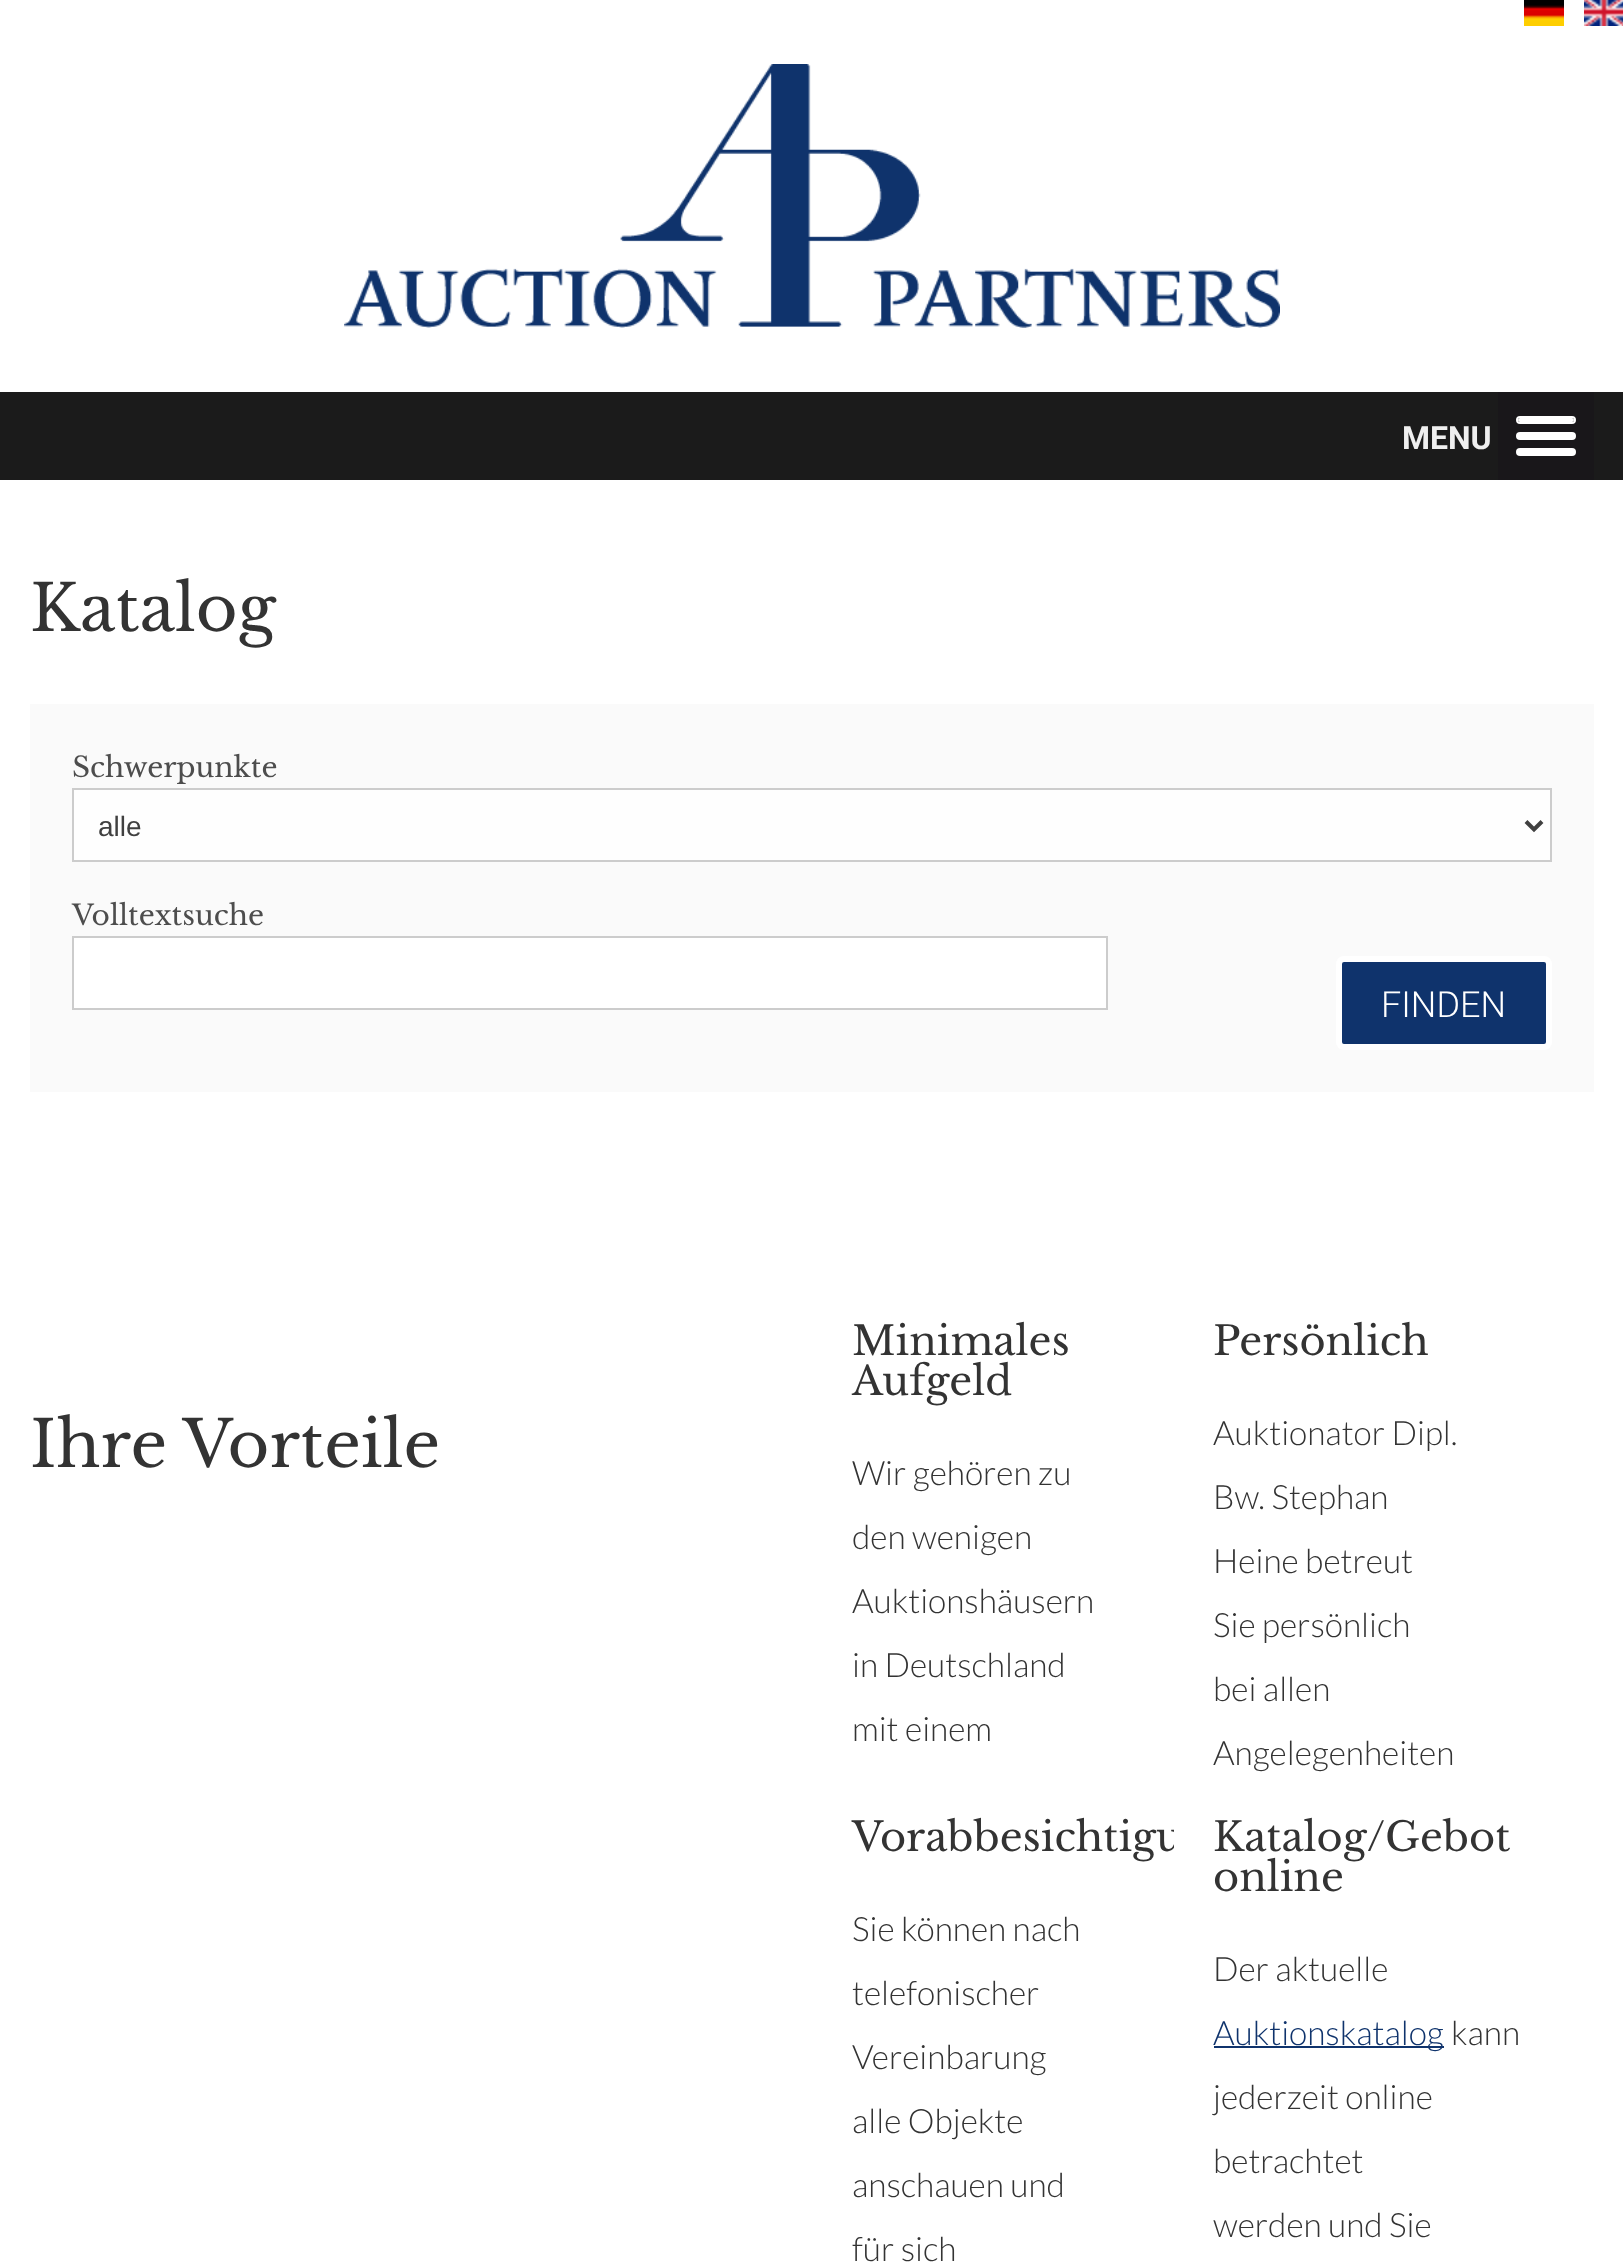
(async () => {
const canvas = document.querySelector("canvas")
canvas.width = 1623
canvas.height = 2268
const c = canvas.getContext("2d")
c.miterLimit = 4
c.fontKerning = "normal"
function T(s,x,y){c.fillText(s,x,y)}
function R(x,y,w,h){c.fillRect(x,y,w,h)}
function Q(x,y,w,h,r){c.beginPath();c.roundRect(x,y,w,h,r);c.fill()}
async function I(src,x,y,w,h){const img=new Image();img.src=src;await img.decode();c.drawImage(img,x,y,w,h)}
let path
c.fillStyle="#fff"
R(0,0,1623,2268)
await I("1.png",1524,0,40,26)
await I("2.png",1584,0,39,26)
await I("3.png",344,64,936,264)
c.fillStyle="#1b1b1b"
R(0,392,1623,88)
c.fillStyle="#19171a"
R(1498,392,96,88)
c.font="bold 32px Roboto"
c.fillStyle="#efefef"
T("MENU",1402,449)
c.fillStyle="#fff"
Q(1516,448,60,8,4)
Q(1516,432,60,8,4)
c.beginPath()
c.roundRect(1517,417,58,6,3)
c.strokeStyle="#fff"
c.lineWidth=2
c.stroke()
Q(1518,418,56,4,2)
c.font="64px Libre Baskerville"
c.fillStyle="#333"
T("Katalog",30,631)
c.fillStyle="#fafafa"
R(30,704,1564,388)
c.font="28px Libre Baskerville"
c.fillStyle="#4d4d4d"
T("Schwerpunkte",72,777)
c.fillStyle="#fefefe"
c.beginPath()
c.rect(73,789,1478,72)
c.fill()
c.strokeStyle="#ccc"
c.stroke()
path = new Path2D("M1526 821.5l8 8l8-8")
c.strokeStyle="#404040"
c.lineWidth=4
c.stroke(path)
c.font="28px Liberation Sans"
c.fillStyle="#404040"
T("alle",98,836)
c.font="28px Libre Baskerville"
c.fillStyle="#4d4d4d"
T("Volltextsuche",72,925)
c.fillStyle="#fff"
c.beginPath()
c.rect(73,937,1034,72)
c.fill()
c.strokeStyle="#ccc"
c.lineWidth=2
c.stroke()
c.fillStyle="#0f336c"
c.beginPath()
c.roundRect(1339,959,210,88,5)
c.fill()
c.strokeStyle="#fff"
c.lineWidth=6
c.stroke()
c.font="300 36px Roboto"
c.fillStyle="#fff"
T("FINDEN",1381,1017)
c.font="64px Libre Baskerville"
c.fillStyle="#333"
T("Ihre Vorteile",30,1467)
c.font="40px Libre Baskerville"
T("Minimales",852,1355)
T("Aufgeld",852,1395)
c.font="300 33.5px Lato"
T("Wir gehören zu",852,1485)
T("den wenigen",852,1549)
T("Auktionshäusern",852,1613)
T("in Deutschland",852,1677)
T("mit einem",852,1741)
c.font="40px Libre Baskerville"
T("Persönlich",1213,1355)
c.font="300 33.5px Lato"
T("Auktionator Dipl.",1213,1445)
T("Bw. Stephan",1213,1509)
T("Heine betreut",1213,1573)
T("Sie persönlich",1213,1637)
T("bei allen",1213,1701)
T("Angelegenheiten",1213,1765)
c.font="40px Libre Baskerville"
T("Vorabbesichtigu",852,1851)
c.font="300 33.5px Lato"
T("Sie können nach",852,1941)
T("telefonischer",852,2005)
T("Vereinbarung",852,2069)
T("alle Objekte",852,2133)
T("anschauen und",852,2197)
T("für sich",852,2261)
c.fillStyle="#fff"
R(1174,1829,8,23)
c.font="40px Libre Baskerville"
c.fillStyle="#333"
T("Katalog/Gebot",1213,1851)
T("online",1213,1891)
c.font="300 33.5px Lato"
T("Der aktuelle",1213,1981)
c.fillStyle="#0f336c"
R(1214,2046,230,2)
T("Auktionskatalog",1213,2045)
c.fillStyle="#333"
T("kann",1451,2045)
T("jederzeit online",1213,2109)
T("betrachtet",1213,2173)
T("werden und Sie",1213,2237)
})()
